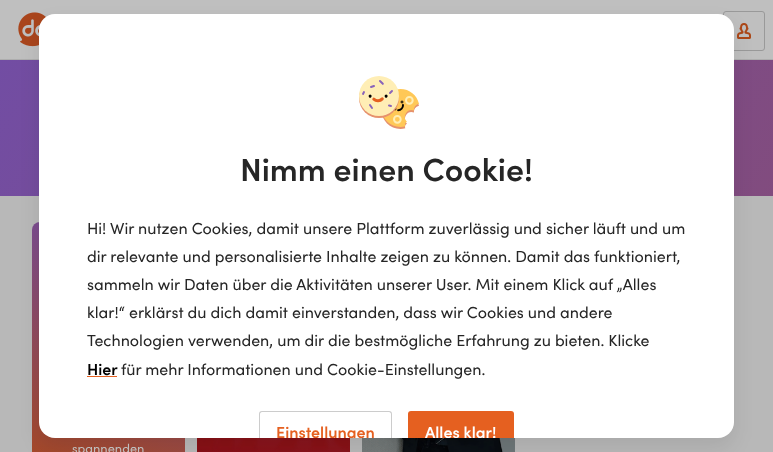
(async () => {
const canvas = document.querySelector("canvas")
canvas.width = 773
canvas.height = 452
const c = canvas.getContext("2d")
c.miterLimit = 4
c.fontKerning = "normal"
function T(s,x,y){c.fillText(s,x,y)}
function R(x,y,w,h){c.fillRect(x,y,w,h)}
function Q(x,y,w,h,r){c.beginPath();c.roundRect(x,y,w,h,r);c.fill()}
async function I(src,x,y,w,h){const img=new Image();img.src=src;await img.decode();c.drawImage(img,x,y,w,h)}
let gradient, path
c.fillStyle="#b8b8b8"
R(0,0,773,452)
c.fillStyle="#bfbfbf"
R(0,0,773,59)
c.fillStyle="#adadad"
R(0,59,773,1)
await I("2.png",18,12,28,35)
c.beginPath()
c.roundRect(723.5,11.5,41,39,2.5)
c.strokeStyle="#999"
c.stroke()
await I("3.png",737,23,14,16)
gradient = c.createLinearGradient(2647,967,445,-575)
gradient.addColorStop(0,"#ac4818")
gradient.addColorStop(1,"#724da3")
c.fillStyle = gradient
R(0,60,773,136)
gradient = c.createLinearGradient(61,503,156,213)
gradient.addColorStop(0,"#ac4818")
gradient.addColorStop(1,"#724da3")
c.fillStyle = gradient
c.beginPath()
c.roundRect(32,222,153,230,[8,8,0,0])
c.fill()
gradient = c.createLinearGradient(261,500,286,216)
gradient.addColorStop(0,"#a8000b")
gradient.addColorStop(1,"#b38184")
c.fillStyle = gradient
R(197,438,153,14)
await I("4.png",197,438,153,13)
c.fillStyle="#00000033"
R(197,438,153,14)
await I("5.png",362,438,153,14)
R(362,438,153,14)
c.fillStyle="#00000014"
c.filter="blur(10px)"
c.beginPath()
c.roundRect(39,24,695,424,16)
c.fill()
c.filter="none"
c.fillStyle="#fff"
Q(39,14,695,424,16)
await I("1.png",359,76,60,53)
c.font="600 32px Sofia"
c.fillStyle="#262626"
T("Nimm einen Cookie!",240,181)
c.font="16px Sofia"
T("Hi! Wir nutzen Cookies, damit unsere Plattform zuverlässig und sicher läuft und um",87,234)
T("dir relevante und personalisierte Inhalte zeigen zu können. Damit das funktioniert,",87,262)
T("sammeln wir Daten über die Aktivitäten unserer User. Mit einem Klick auf „Alles",87,290)
T("klar!“ erklärst du dich damit einverstanden, dass wir Cookies und andere",87,318)
T("Technologien verwenden, um dir die bestmögliche Erfahrung zu bieten. Klicke",87,346)
c.font="600 16px Sofia"
c.fillStyle="#000"
T("Hier",87,375)
c.fillStyle="#e56020"
R(87,376,30,1)
c.font="16px Sofia"
c.fillStyle="#262626"
T("für mehr Informationen und Cookie-Einstellungen.",121,375)
c.fillStyle="#ccc"
path = new Path2D("M262 411c-2 0-3 1-3 3v24h1v-24c0-1 1-2 2-2h127c1 0 2 1 2 2v24h1v-24c0-2-1-3-3-3z")
c.fill(path)
c.save()
c.beginPath()
c.roundRect(39,14,695,424,16)
c.clip()
c.font="600 16px Sofia"
c.fillStyle="#e56020"
T("Einstellungen",276,438)
c.restore()
c.fillStyle="#e56020"
c.beginPath()
c.roundRect(408,411,106,27,[3,3,0,0])
c.fill()
c.save()
c.beginPath()
c.roundRect(39,14,695,424,16)
c.clip()
c.font="600 16px Sofia"
c.fillStyle="#fff"
T("Alles klar!",425,438)
c.restore()
c.font="12.75px Sofia"
c.fillStyle="#bfbfbf"
T("spannenden",72,453)
})()
